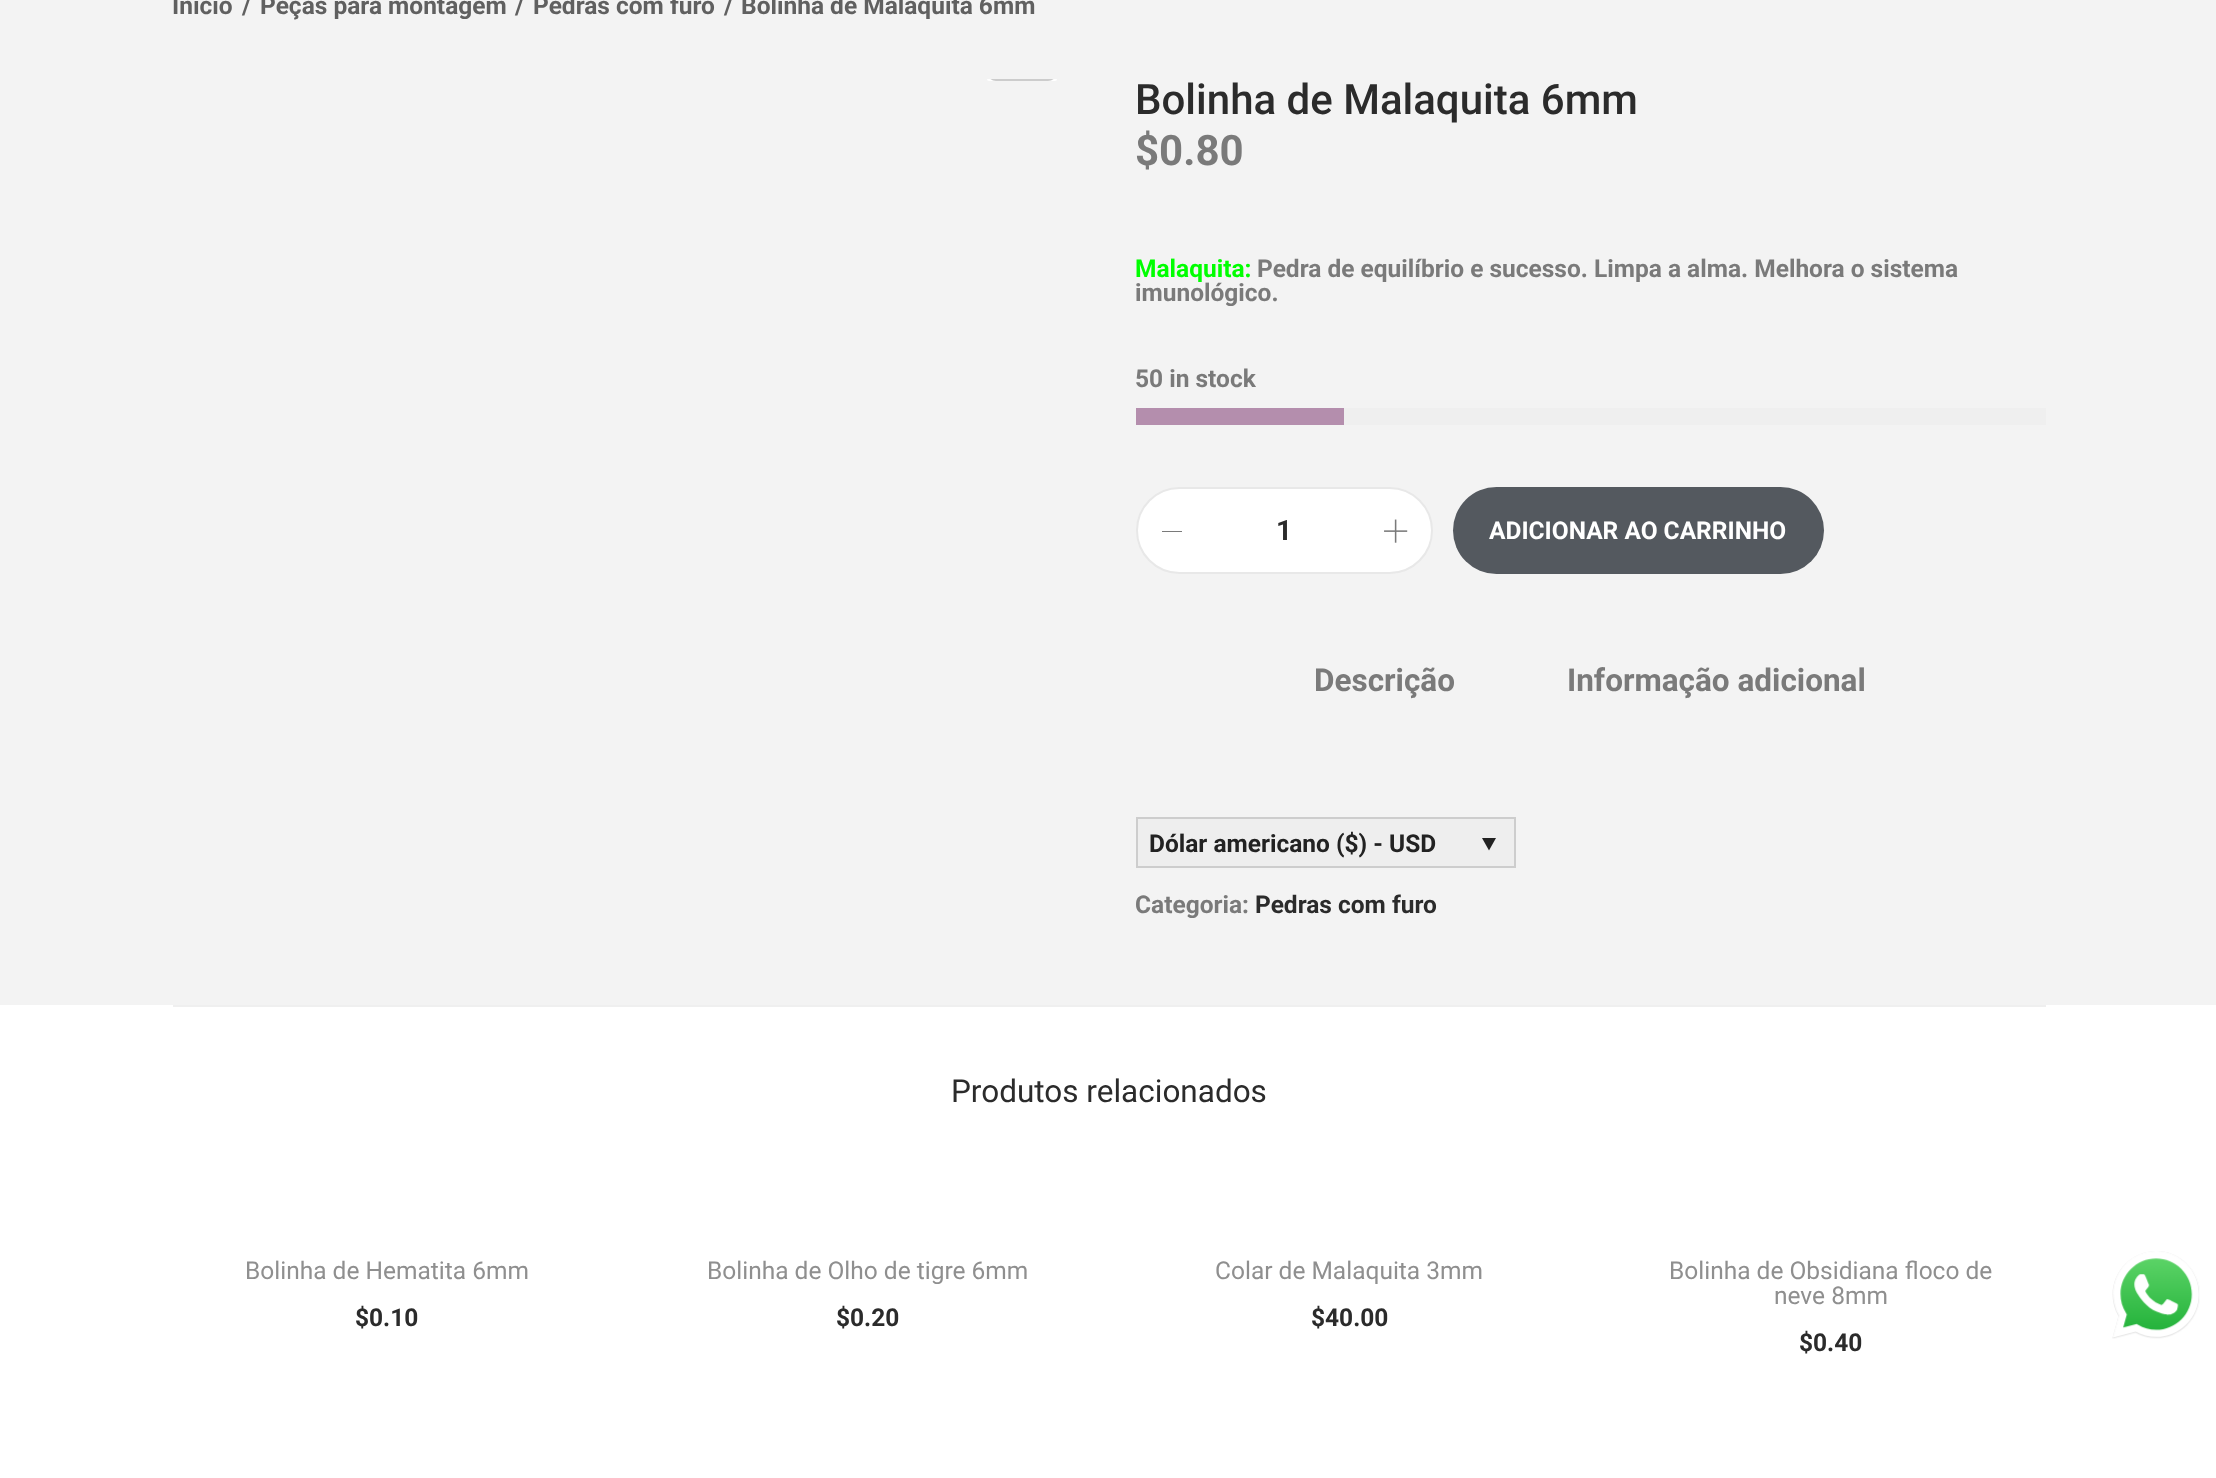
(async () => {
const canvas = document.querySelector("canvas")
canvas.width = 2216
canvas.height = 1478
const c = canvas.getContext("2d")
c.miterLimit = 4
c.fontKerning = "normal"
function T(s,x,y){c.fillText(s,x,y)}
function R(x,y,w,h){c.fillRect(x,y,w,h)}
function Q(x,y,w,h,r){c.beginPath();c.roundRect(x,y,w,h,r);c.fill()}
async function I(src,x,y,w,h){const img=new Image();img.src=src;await img.decode();c.drawImage(img,x,y,w,h)}
let path
c.fillStyle="#fff"
R(0,0,2216,1478)
c.fillStyle="#f3f3f3"
R(0,0,2216,1005)
c.font="bold 24.5px Roboto"
c.fillStyle="#606060"
T("Início",172,14)
T("/",242,14)
T("Peças para montagem",260,14)
T("/",515,14)
T("Pedras com furo",533,14)
T("/",724,14)
T("Bolinha de Malaquita 6mm",741,14)
c.fillStyle="#fff"
c.beginPath()
c.roundRect(987,79,70,2,[0,0,9,9])
c.fill()
c.save()
c.beginPath()
c.rect(173,79,910,28)
c.clip()
c.beginPath()
c.roundRect(988,12,68,68,8)
c.strokeStyle="#ccc"
c.lineWidth=2
c.stroke()
c.restore()
c.font="500 42px Roboto"
c.fillStyle="#2b2b2b"
T("Bolinha de Malaquita 6mm",1135,114)
c.font="bold 42px Roboto"
c.fillStyle="#7a7a7a"
T("$0.80",1135,165)
c.font="bold 24.5px Roboto"
c.fillStyle="#0f0"
T("Malaquita:",1135,277)
c.fillStyle="#7a7a7a"
T("Pedra de equilíbrio e sucesso. Limpa a alma. Melhora o sistema",1257,277)
T("imunológico.",1135,301)
T("50 in stock",1135,387)
c.fillStyle="#efefef"
R(1344,408,702,17)
c.fillStyle="#b48ead"
R(1136,408,208,17)
c.fillStyle="#fff"
c.beginPath()
c.roundRect(1137,488,295,85,42.5)
c.fill()
c.strokeStyle="#e8e8e8"
c.lineWidth=2
c.stroke()
c.fillStyle="#7a7a7a"
R(1162,531,20,1)
c.font="bold 28px Roboto"
c.fillStyle="#2b2b2b"
T("1",1276,540)
await I("1.png",1384,519,24,24)
c.fillStyle="#54595f"
Q(1453,487,371,87,43.5)
c.font="bold 24.5px Roboto"
c.fillStyle="#fff"
T("ADICIONAR AO CARRINHO",1489,539)
c.font="bold 31.5px Roboto"
c.fillStyle="#7a7a7a"
T("Descrição",1314,691)
T("Informação adicional",1567,691)
c.strokeStyle="#cdcdcd"
c.strokeRect(1137,818,378,49)
c.fillStyle="#eee"
R(1138,819,376,47)
c.font="bold 24.5px Roboto"
c.fillStyle="#222"
T("Dólar americano ($) - USD",1149,852)
path = new Path2D("M1482 838h14l-7 12.5z")
c.fill(path)
c.fillStyle="#7a7a7a"
T("Categoria:",1135,913)
c.fillStyle="#2b2b2b"
T("Pedras com furo",1255,913)
c.fillStyle="#efefef"
R(173,1005,1873,2)
c.font="31.5px Roboto"
c.fillStyle="#2b2b2b"
T("Produtos relacionados",951,1102)
c.font="24.5px Roboto"
c.fillStyle="#8f8f8f"
T("Bolinha de Hematita 6mm",245,1279)
c.font="bold 24.5px Roboto"
c.fillStyle="#2b2b2b"
T("$0.10",355,1326)
c.font="24.5px Roboto"
c.fillStyle="#8f8f8f"
T("Bolinha de Olho de tigre 6mm",707,1279)
c.font="bold 24.5px Roboto"
c.fillStyle="#2b2b2b"
T("$0.20",836,1326)
c.font="24.5px Roboto"
c.fillStyle="#8f8f8f"
T("Colar de Malaquita 3mm",1215,1279)
c.font="bold 24.5px Roboto"
c.fillStyle="#2b2b2b"
T("$40.00",1311,1326)
c.font="24.5px Roboto"
c.fillStyle="#8f8f8f"
T("Bolinha de Obsidiana floco de",1669,1279)
T("neve 8mm",1774,1304)
c.font="bold 24.5px Roboto"
c.fillStyle="#2b2b2b"
T("$0.40",1799,1351)
await I("2.png",2112,1251,88,88)
})()
